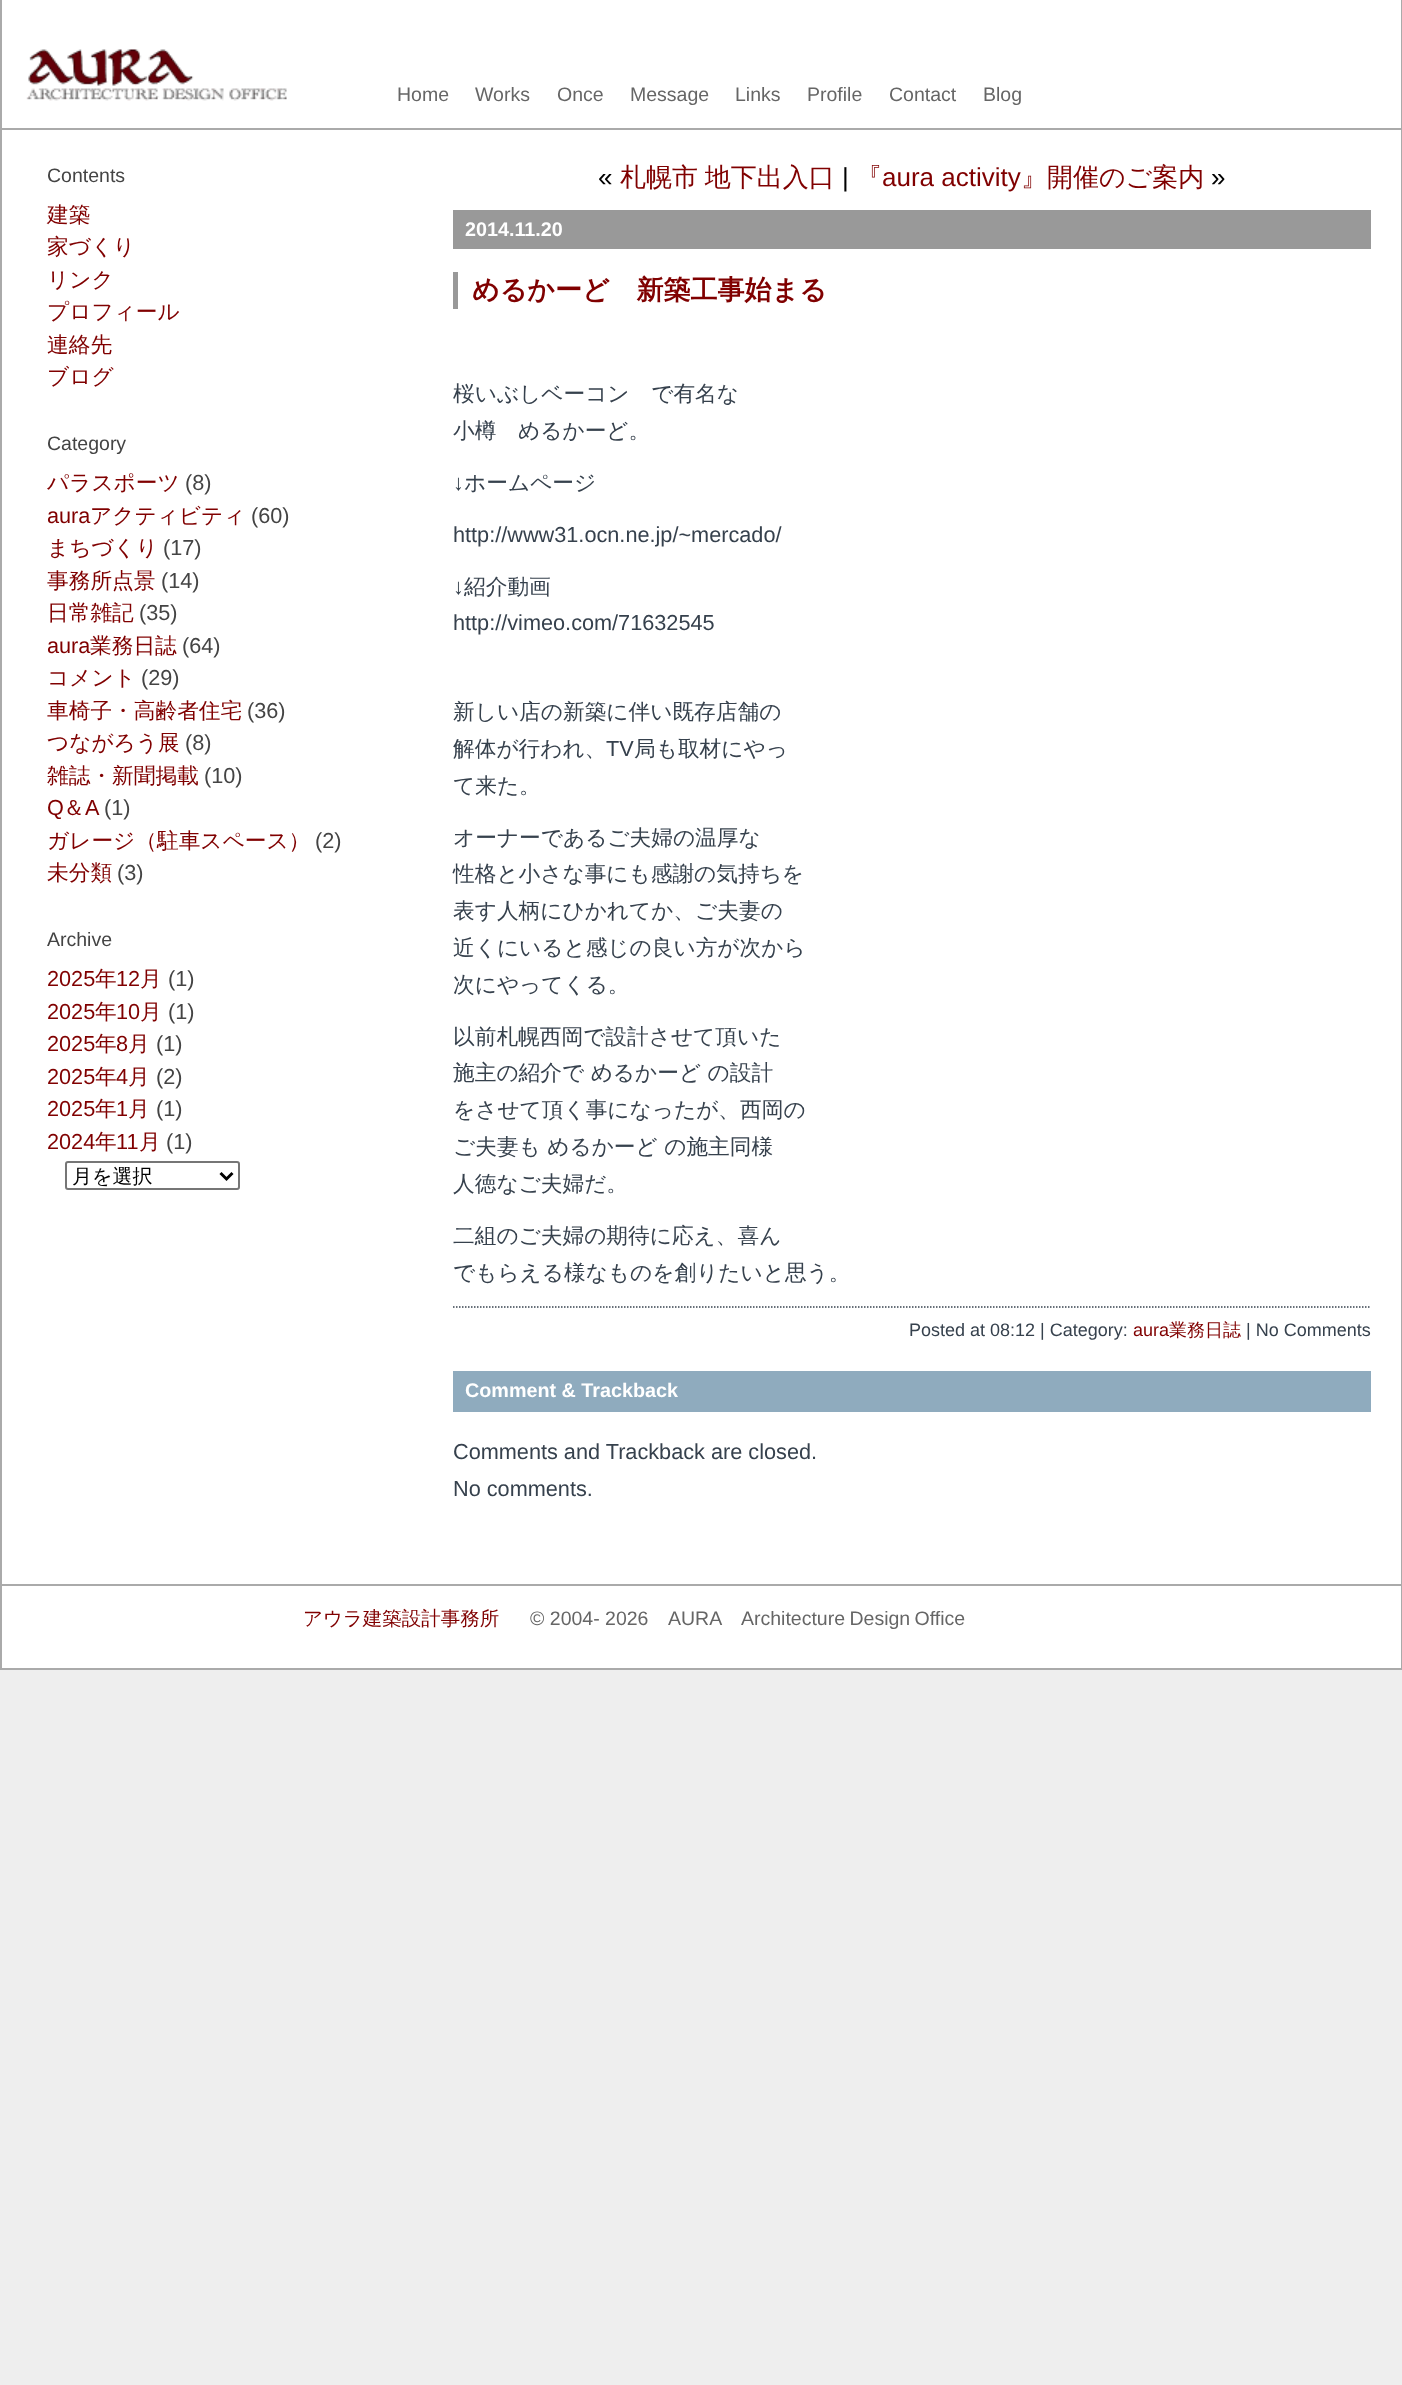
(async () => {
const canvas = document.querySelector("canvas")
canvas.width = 1402
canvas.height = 2385
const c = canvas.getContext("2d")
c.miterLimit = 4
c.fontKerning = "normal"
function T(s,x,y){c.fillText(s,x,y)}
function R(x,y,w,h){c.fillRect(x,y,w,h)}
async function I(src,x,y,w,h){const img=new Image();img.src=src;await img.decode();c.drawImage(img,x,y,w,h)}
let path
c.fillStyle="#eee"
R(0,0,1402,2385)
c.fillStyle="#fff"
R(2,0,1399,1584)
c.fillStyle="#aaa"
R(1401,0,1,1670)
R(0,1584,1402,2)
R(0,0,2,1586)
R(2,128,1399,2)
await I("1.png",26,49,261,52)
c.font="19.5px Liberation Sans"
c.fillStyle="#666"
T("Home",397,101)
T("Works",475,101)
T("Once",557,101)
T("Message",630,101)
T("Links",735,101)
T("Profile",807,101)
T("Contact",889,101)
T("Blog",983,101)
c.fillStyle="#444"
T("Contents",47,182)
c.font="500 21.7px WenQuanYi Zen Hei"
c.fillStyle="#800000"
T("建築",47,222)
T("家づくり",47,254)
T("リンク",47,287)
T("プロフィール",47,319)
T("連絡先",47,352)
T("ブログ",47,384)
c.font="19.5px Liberation Sans"
c.fillStyle="#444"
T("Category",47,450)
c.font="500 21.7px WenQuanYi Zen Hei"
c.fillStyle="#800000"
T("パラスポーツ",47,490)
c.font="21.7px Liberation Sans"
c.fillStyle="#444"
T("(8)",185,490)
c.fillStyle="#800000"
T("aura",47,523)
c.font="500 21.7px WenQuanYi Zen Hei"
T("アクティビティ",90,523)
c.font="21.7px Liberation Sans"
c.fillStyle="#444"
T("(60)",251,523)
c.font="500 21.7px WenQuanYi Zen Hei"
c.fillStyle="#800000"
T("まちづくり",47,555)
c.font="21.7px Liberation Sans"
c.fillStyle="#444"
T("(17)",163,555)
c.font="500 21.7px WenQuanYi Zen Hei"
c.fillStyle="#800000"
T("事務所点景",47,588)
c.font="21.7px Liberation Sans"
c.fillStyle="#444"
T("(14)",161,588)
c.font="500 21.7px WenQuanYi Zen Hei"
c.fillStyle="#800000"
T("日常雑記",47,620)
c.font="21.7px Liberation Sans"
c.fillStyle="#444"
T("(35)",139,620)
c.fillStyle="#800000"
T("aura",47,653)
c.font="500 21.7px WenQuanYi Zen Hei"
T("業務日誌",90,653)
c.font="21.7px Liberation Sans"
c.fillStyle="#444"
T("(64)",182,653)
c.font="500 21.7px WenQuanYi Zen Hei"
c.fillStyle="#800000"
T("コメント",47,685)
c.font="21.7px Liberation Sans"
c.fillStyle="#444"
T("(29)",141,685)
c.font="500 21.7px WenQuanYi Zen Hei"
c.fillStyle="#800000"
T("車椅子・高齢者住宅",47,718)
c.font="21.7px Liberation Sans"
c.fillStyle="#444"
T("(36)",247,718)
c.font="500 21.7px WenQuanYi Zen Hei"
c.fillStyle="#800000"
T("つながろう展",47,750)
c.font="21.7px Liberation Sans"
c.fillStyle="#444"
T("(8)",185,750)
c.font="500 21.7px WenQuanYi Zen Hei"
c.fillStyle="#800000"
T("雑誌・新聞掲載",47,783)
c.font="21.7px Liberation Sans"
c.fillStyle="#444"
T("(10)",204,783)
c.fillStyle="#800000"
T("Q",47,815)
c.font="500 21.7px WenQuanYi Zen Hei"
T("＆",63,815)
c.font="21.7px Liberation Sans"
T("A",85,815)
c.fillStyle="#444"
T("(1)",104,815)
c.font="500 21.7px WenQuanYi Zen Hei"
c.fillStyle="#800000"
T("ガレージ（駐車スペース）",47,848)
c.font="21.7px Liberation Sans"
c.fillStyle="#444"
T("(2)",315,848)
c.font="500 21.7px WenQuanYi Zen Hei"
c.fillStyle="#800000"
T("未分類",47,880)
c.font="21.7px Liberation Sans"
c.fillStyle="#444"
T("(3)",117,880)
c.font="19.5px Liberation Sans"
T("Archive",47,946)
c.font="21.7px Liberation Sans"
c.fillStyle="#800000"
T("2025",47,986)
c.font="500 21.7px WenQuanYi Zen Hei"
T("年",95,986)
c.font="21.7px Liberation Sans"
T("12",116,986)
c.font="500 21.7px WenQuanYi Zen Hei"
T("月",140,986)
c.font="21.7px Liberation Sans"
c.fillStyle="#444"
T("(1)",168,986)
c.fillStyle="#800000"
T("2025",47,1019)
c.font="500 21.7px WenQuanYi Zen Hei"
T("年",95,1019)
c.font="21.7px Liberation Sans"
T("10",116,1019)
c.font="500 21.7px WenQuanYi Zen Hei"
T("月",140,1019)
c.font="21.7px Liberation Sans"
c.fillStyle="#444"
T("(1)",168,1019)
c.fillStyle="#800000"
T("2025",47,1051)
c.font="500 21.7px WenQuanYi Zen Hei"
T("年",95,1051)
c.font="21.7px Liberation Sans"
T("8",116,1051)
c.font="500 21.7px WenQuanYi Zen Hei"
T("月",128,1051)
c.font="21.7px Liberation Sans"
c.fillStyle="#444"
T("(1)",156,1051)
c.fillStyle="#800000"
T("2025",47,1084)
c.font="500 21.7px WenQuanYi Zen Hei"
T("年",95,1084)
c.font="21.7px Liberation Sans"
T("4",116,1084)
c.font="500 21.7px WenQuanYi Zen Hei"
T("月",128,1084)
c.font="21.7px Liberation Sans"
c.fillStyle="#444"
T("(2)",156,1084)
c.fillStyle="#800000"
T("2025",47,1116)
c.font="500 21.7px WenQuanYi Zen Hei"
T("年",95,1116)
c.font="21.7px Liberation Sans"
T("1",116,1116)
c.font="500 21.7px WenQuanYi Zen Hei"
T("月",128,1116)
c.font="21.7px Liberation Sans"
c.fillStyle="#444"
T("(1)",156,1116)
c.fillStyle="#800000"
T("2024",47,1149)
c.font="500 21.7px WenQuanYi Zen Hei"
T("年",95,1149)
c.font="21.7px Liberation Sans"
T("11",116,1149)
c.font="500 21.7px WenQuanYi Zen Hei"
T("月",139,1149)
c.font="21.7px Liberation Sans"
c.fillStyle="#444"
T("(1)",166,1149)
c.beginPath()
c.roundRect(66,1162,173,27,2)
c.strokeStyle="#767676"
c.lineWidth=2
c.stroke()
path = new Path2D("M220.5 1173l6 6l6-6")
c.strokeStyle="#000"
c.lineWidth=3
c.stroke(path)
c.font="500 20px WenQuanYi Zen Hei"
c.fillStyle="#000"
T("月を選択",72,1183)
c.font="26px Liberation Sans"
T("«",598,186)
c.wordSpacing="-1px"
c.font="500 26px WenQuanYi Zen Hei"
c.fillStyle="#800000"
T("札幌市 地下出入口",620,186)
c.wordSpacing="0px"
c.font="26px Liberation Sans"
c.fillStyle="#000"
T("|",842,186)
c.font="500 26px WenQuanYi Zen Hei"
c.fillStyle="#800000"
T("『",856,186)
c.font="26px Liberation Sans"
T("aura activity",882,186)
c.font="500 26px WenQuanYi Zen Hei"
T("』開催のご案内",1021,186)
c.font="26px Liberation Sans"
c.fillStyle="#000"
T("»",1211,186)
c.fillStyle="#999"
R(453,210,918,39)
c.font="bold 19.75px Liberation Sans"
c.fillStyle="#fff"
T("2014.11.20",465,236)
c.fillStyle="#999"
R(453,272,5,37)
c.font="bold 27px WenQuanYi Zen Hei"
c.fillStyle="#800000"
T("めるかーど　新築工事始まる",472,299)
c.font="500 21.7px WenQuanYi Zen Hei"
c.fillStyle="#36414d"
T("桜いぶしベーコン　で有名な",453,401)
T("小樽　めるかーど。",453,438)
c.font="21.7px Liberation Sans"
T("↓",453,490)
c.font="500 21.7px WenQuanYi Zen Hei"
T("ホームページ",464,490)
c.font="21.7px Liberation Sans"
T("http://www31.ocn.ne.jp/~mercado/",453,542)
T("↓",453,594)
c.font="500 21.7px WenQuanYi Zen Hei"
T("紹介動画",464,594)
c.font="21.7px Liberation Sans"
T("http://vimeo.com/71632545",453,630)
c.font="500 21.7px WenQuanYi Zen Hei"
T("新しい店の新築に伴い既存店舗の",453,719)
T("解体が行われ、",453,756)
c.font="21.7px Liberation Sans"
T("TV",606,756)
c.font="500 21.7px WenQuanYi Zen Hei"
T("局も取材にやっ",634,756)
T("て来た。",453,793)
T("オーナーであるご夫婦の温厚な",453,845)
T("性格と小さな事にも感謝の気持ちを",453,881)
T("表す人柄にひかれてか、ご夫妻の",453,918)
T("近くにいると感じの良い方が次から",453,955)
T("次にやってくる。",453,992)
T("以前札幌西岡で設計させて頂いた",453,1044)
T("施主の紹介で めるかーど の設計",453,1080)
T("をさせて頂く事になったが、西岡の",453,1117)
T("ご夫妻も めるかーど の施主同様",453,1154)
T("人徳なご夫婦だ。",453,1191)
T("二組のご夫婦の期待に応え、喜ん",453,1243)
T("でもらえる様なものを創りたいと思う。",453,1280)
path = new Path2D("M453 1307h918")
c.strokeStyle="#36414d"
c.lineWidth=1.5
c.setLineDash([1.5,1.5])
c.stroke(path)
c.font="18px Liberation Sans"
T("Posted at 08:12 | Category:",909,1336)
c.fillStyle="#800000"
T("aura",1133,1336)
c.font="500 18px WenQuanYi Zen Hei"
T("業務日誌",1169,1336)
c.font="18px Liberation Sans"
c.fillStyle="#36414d"
T("| No Comments",1246,1336)
c.fillStyle="#8fabbe"
R(453,1371,918,41)
c.font="bold 19.75px Liberation Sans"
c.fillStyle="#fff"
T("Comment & Trackback",465,1397)
c.font="21.7px Liberation Sans"
c.fillStyle="#36414d"
T("Comments and Trackback are closed.",453,1459)
T("No comments.",453,1496)
c.fillStyle="#fff"
R(2,1586,1399,82)
c.fillStyle="#aaa"
R(0,1668,1402,2)
R(0,1586,2,84)
c.font="500 19.5px WenQuanYi Zen Hei"
c.fillStyle="#800000"
T("アウラ建築設計事務所",303,1625)
c.font="19.5px Liberation Sans"
c.fillStyle="#666"
T("© 2004- 2026",530,1625)
T("AURA",668,1625)
c.wordSpacing="-1px"
T("Architecture Design Office",741,1625)
})()
